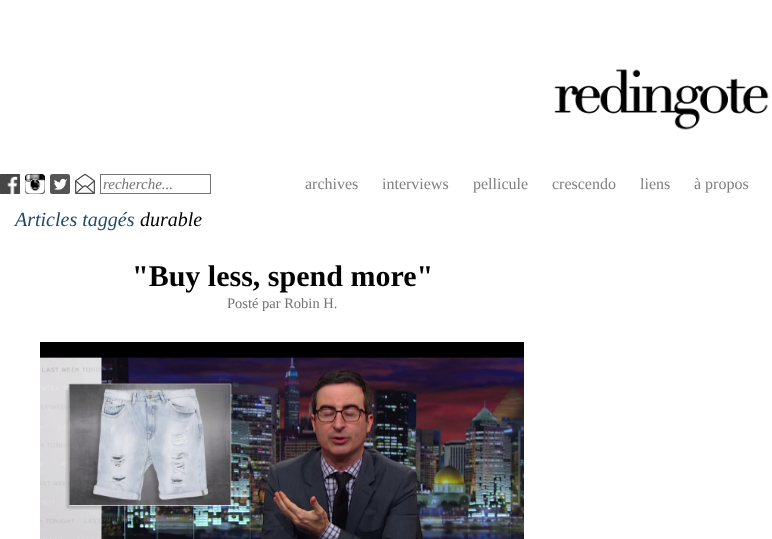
(async () => {
const canvas = document.querySelector("canvas")
canvas.width = 772
canvas.height = 539
const c = canvas.getContext("2d")
c.miterLimit = 4
c.fontKerning = "normal"
function T(s,x,y){c.fillText(s,x,y)}
function R(x,y,w,h){c.fillRect(x,y,w,h)}
async function I(src,x,y,w,h){const img=new Image();img.src=src;await img.decode();c.drawImage(img,x,y,w,h)}
c.fillStyle="#fff"
R(0,0,772,539)
await I("1.png",554,69,215,61)
await I("2.png",0,174,20,20)
await I("3.png",25,174,20,20)
await I("4.png",50,174,20,20)
await I("5.png",75,174,20,20)
c.strokeStyle="#737373"
c.strokeRect(100.5,174.5,110,19)
c.font="italic 15px Liberation Serif"
c.fillStyle="#737373"
T("recherche...",103,189)
c.font="16px Liberation Serif"
c.fillStyle="#818181"
T("archives",305,189)
T("interviews",382,189)
T("pellicule",473,189)
T("crescendo",552,189)
T("liens",640,189)
T("à propos",694,189)
c.font="italic 20px Liberation Serif"
c.fillStyle="#1e4a66"
T("Articles taggés",15,226)
c.fillStyle="#000"
T("durable",140,226)
c.font="bold 30px Liberation Serif"
T("\"Buy less, spend more\"",132,286)
c.font="14.5px Liberation Serif"
c.fillStyle="#737373"
T("Posté par Robin H.",227,308)
await I("6.png",40,342,484,197)
})()
